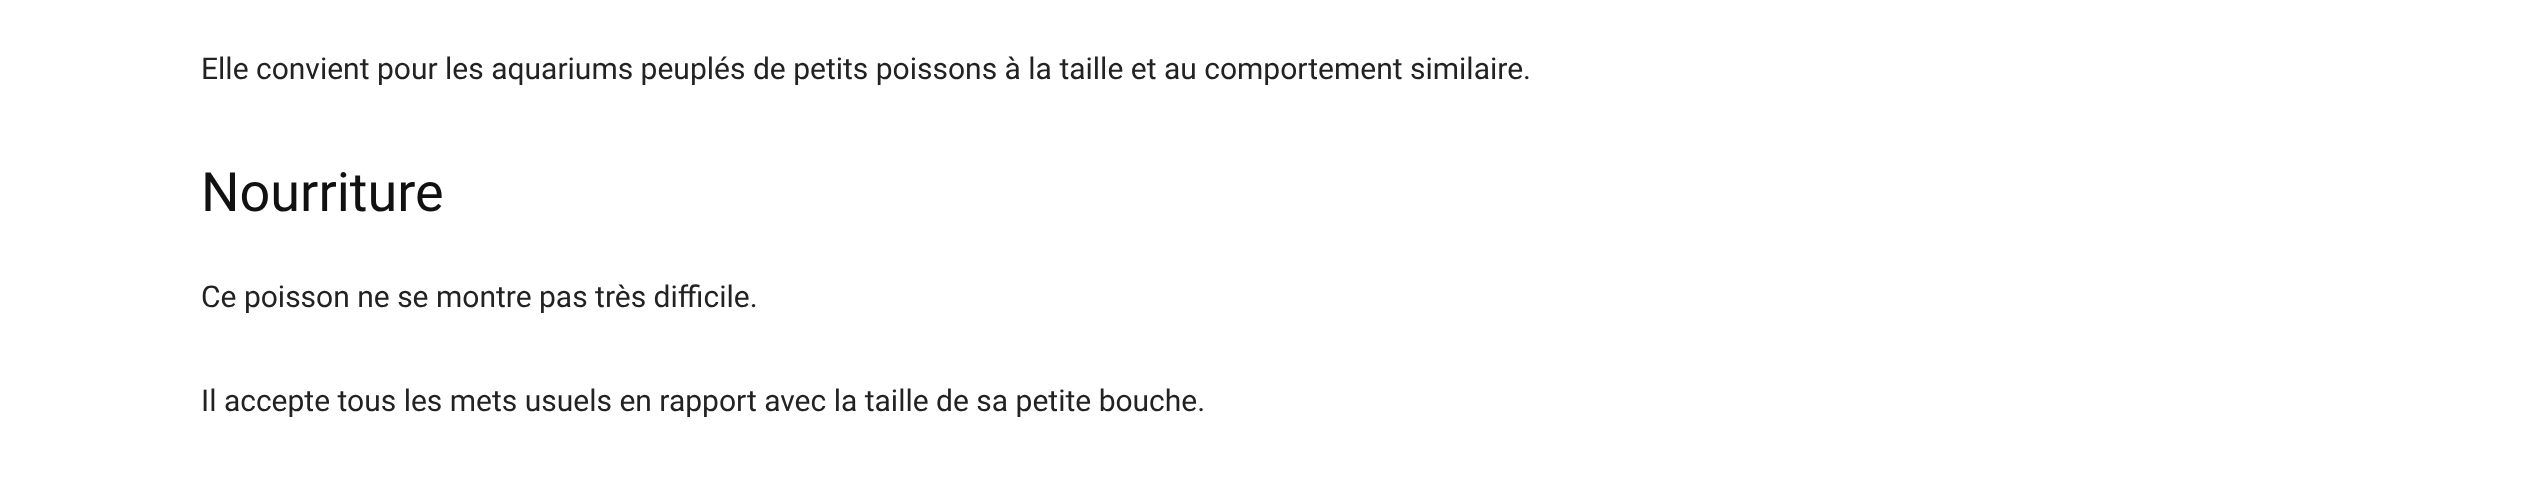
(async () => {
const canvas = document.querySelector("canvas")
canvas.width = 2538
canvas.height = 494
const c = canvas.getContext("2d")
c.miterLimit = 4
c.fontKerning = "normal"
function T(s,x,y){c.fillText(s,x,y)}
function R(x,y,w,h){c.fillRect(x,y,w,h)}
c.fillStyle="#fff"
R(0,0,2538,494)
c.font="30px Roboto"
c.fillStyle="#222"
T("Elle convient pour les aquariums peuplés de petits poissons à la taille et au comportement similaire.",201,79)
c.font="54px Roboto"
c.fillStyle="#111"
T("Nourriture",201,211)
c.font="30px Roboto"
c.fillStyle="#222"
T("Ce poisson ne se montre pas très difficile.",201,307)
T("Il accepte tous les mets usuels en rapport avec la taille de sa petite bouche.",201,411)
})()
